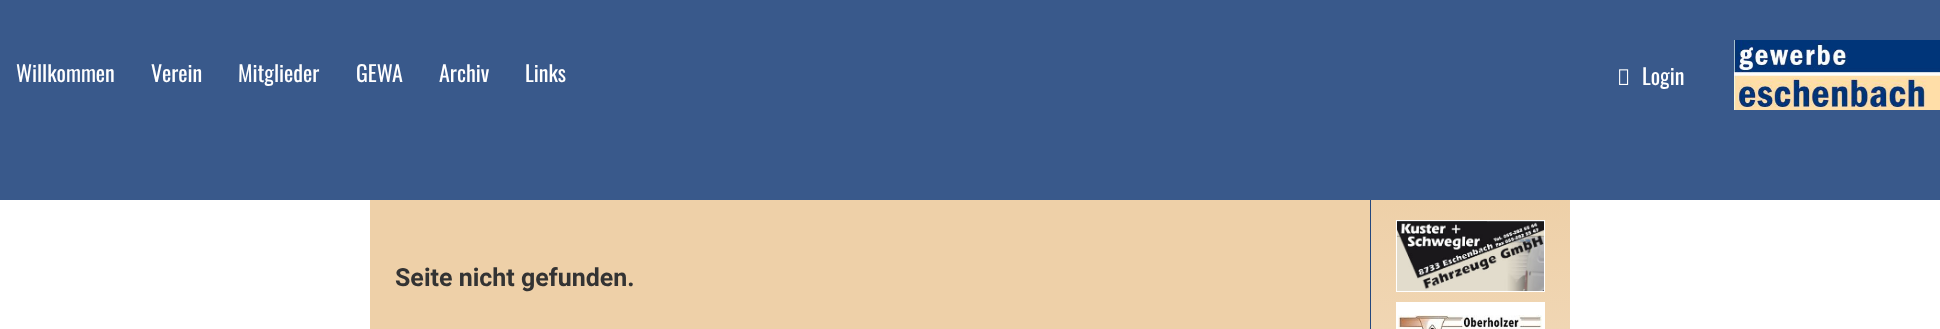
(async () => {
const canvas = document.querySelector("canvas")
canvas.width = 1940
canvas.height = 329
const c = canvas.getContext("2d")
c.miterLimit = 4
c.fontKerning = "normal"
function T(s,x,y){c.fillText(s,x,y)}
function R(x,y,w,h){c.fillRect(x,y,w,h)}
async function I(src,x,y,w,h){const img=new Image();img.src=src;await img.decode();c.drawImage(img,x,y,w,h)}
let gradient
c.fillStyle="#fff"
R(0,0,1940,329)
c.fillStyle="#39598b"
R(0,0,1940,200)
c.font="22px Oswald"
c.fillStyle="#fff"
T("Willkommen",16,82)
T("Verein",151,82)
T("Mitglieder",238,82)
T("GEWA",356,82)
T("Archiv",439,82)
T("Links",525,82)
await I("1.png",1619,69,10,16)
T("Login",1642,85)
await I("2.png",1734,40,206,70)
c.fillStyle="#eed0a8"
R(370,200,1000,129)
c.font="bold 25px Roboto"
c.fillStyle="#333"
T("Seite nicht gefunden.",395,286)
c.fillStyle="#23477e"
R(1370,200,1,129)
gradient = c.createLinearGradient(1471,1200,1471,200)
gradient.addColorStop(0,"#fff")
gradient.addColorStop(1,"#eed0a8")
c.fillStyle = gradient
R(1371,200,199,129)
c.fillStyle="#fff"
R(1396,220,149,72)
await I("3.png",1397,221,147,70)
R(1396,302,149,27)
await I("4.png",1398,315,144,14)
})()
